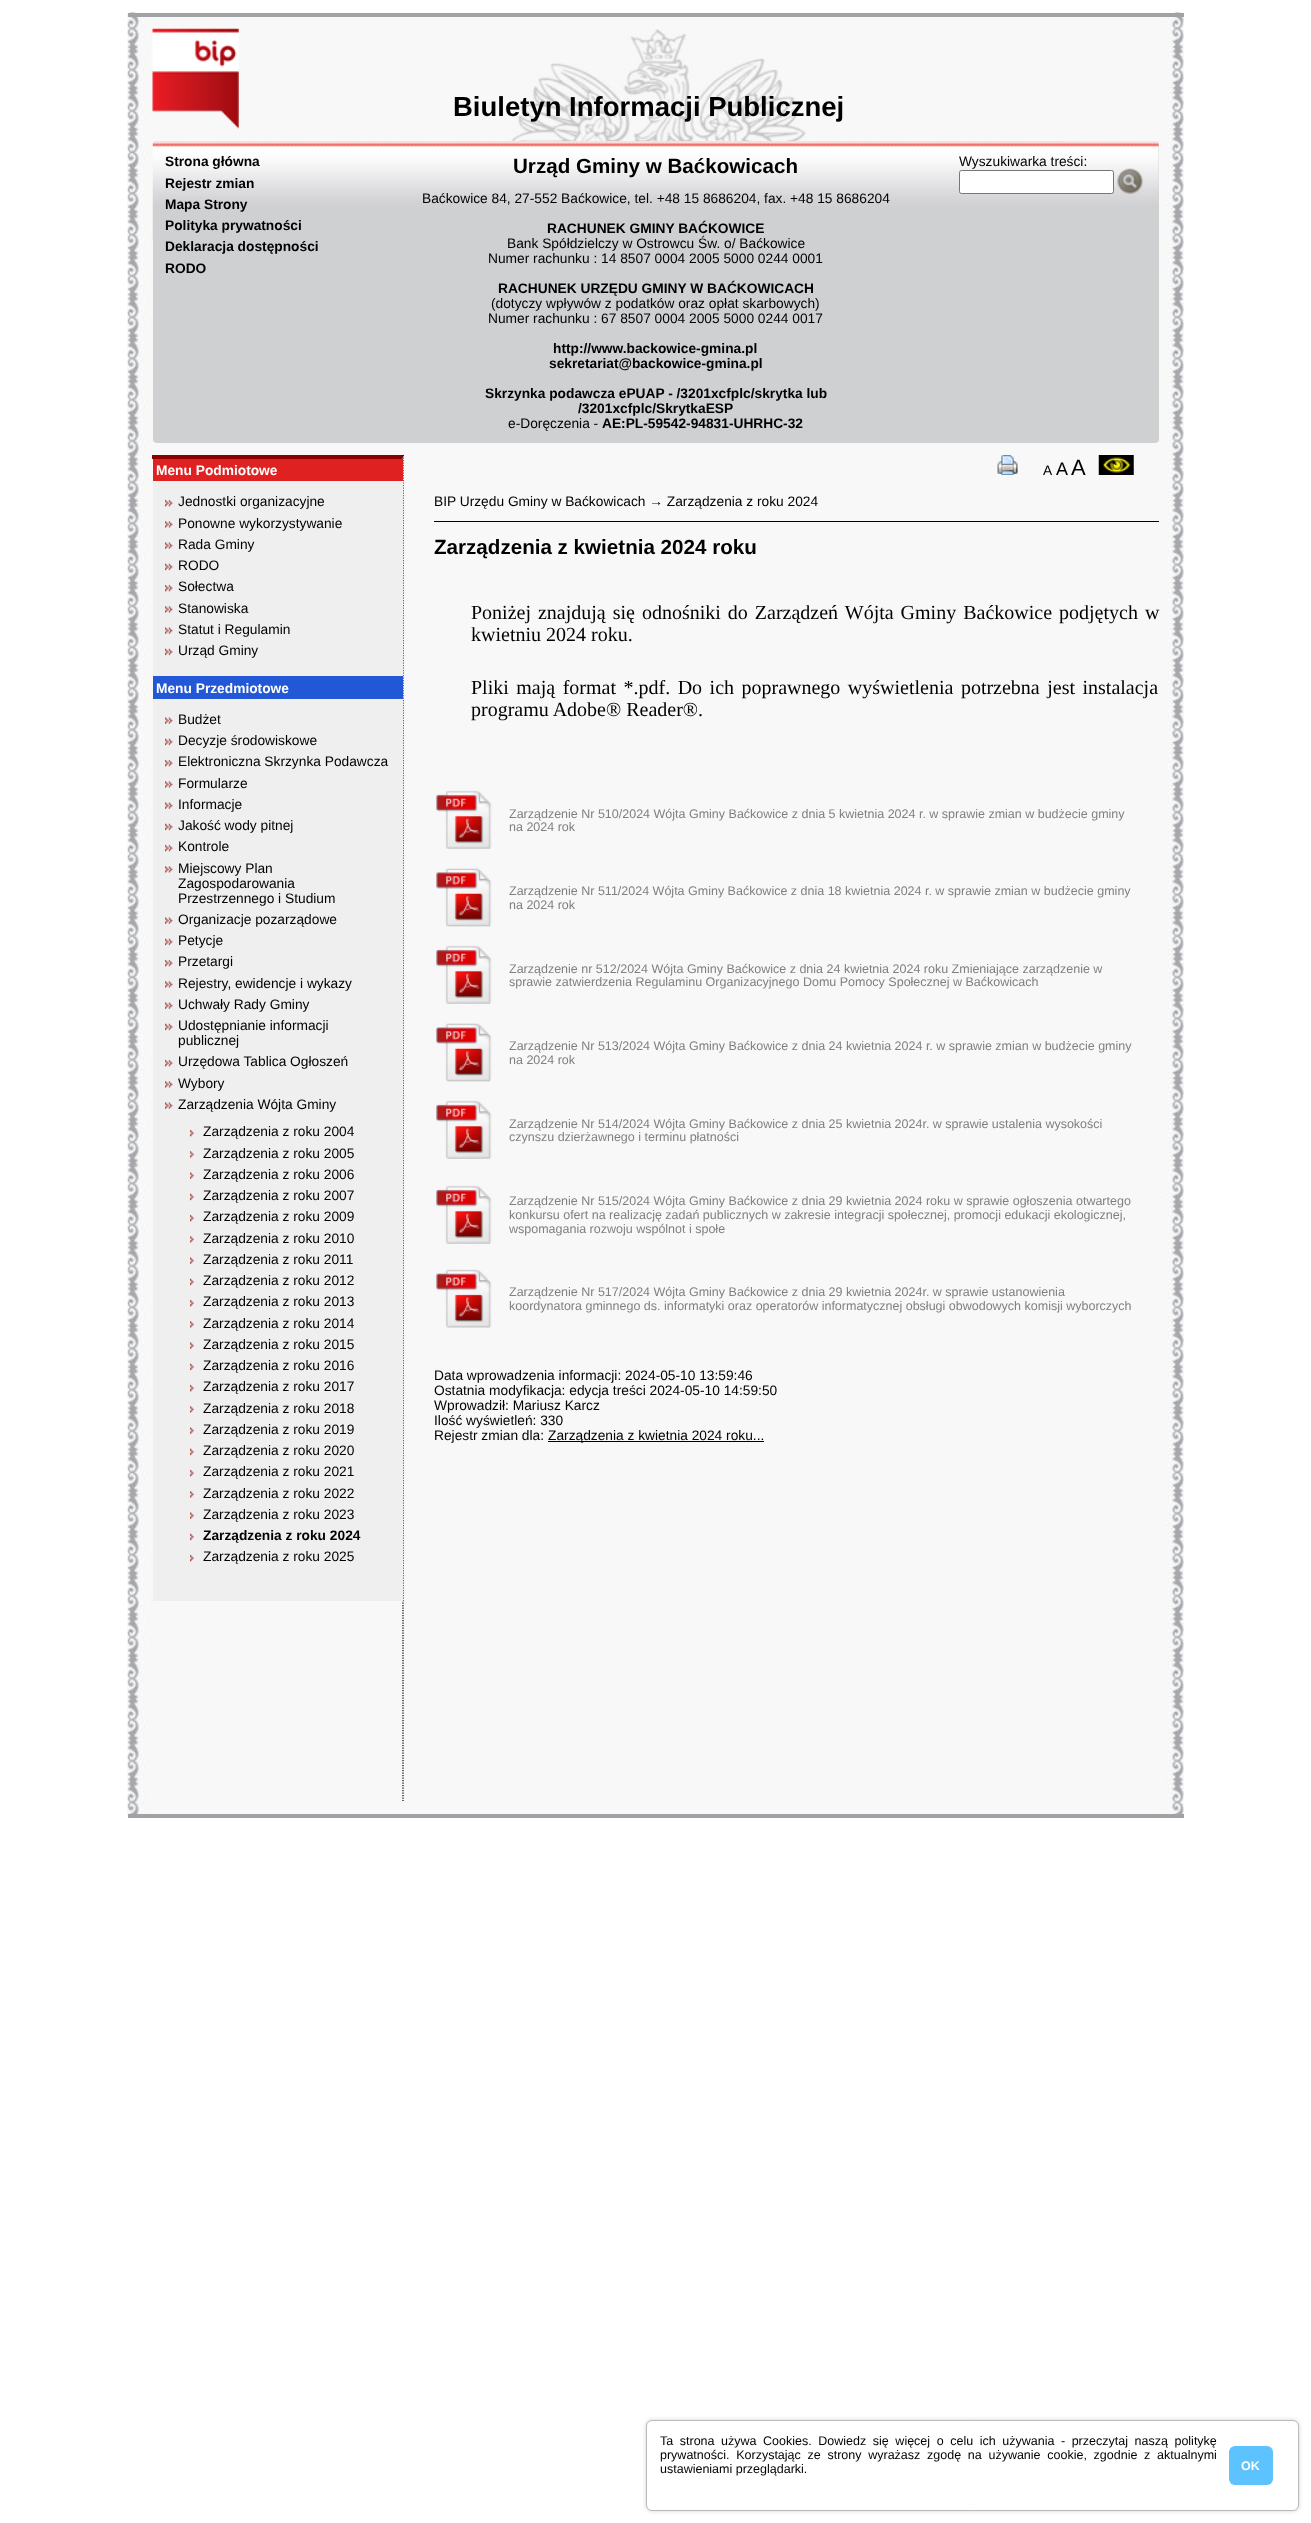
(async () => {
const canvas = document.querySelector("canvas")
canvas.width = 1311
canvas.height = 2523
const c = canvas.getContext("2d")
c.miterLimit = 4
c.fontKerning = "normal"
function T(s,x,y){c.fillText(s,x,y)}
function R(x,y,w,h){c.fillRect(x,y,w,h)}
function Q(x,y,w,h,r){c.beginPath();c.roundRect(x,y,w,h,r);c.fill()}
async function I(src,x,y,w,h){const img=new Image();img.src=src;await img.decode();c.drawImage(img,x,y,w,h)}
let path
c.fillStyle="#fff"
R(0,0,1311,2523)
await I("1.png",127,12,1057,1806)
c.fillStyle="#a1a2a6"
R(128,13,1056,4)
R(128,1814,1056,4)
await I("2.png",511,29,297,112)
await I("3.png",152,28,87,101)
c.font="bold 27.5px Liberation Sans"
c.fillStyle="#000"
T("Biuletyn Informacji Publicznej",453,116)
c.fillStyle="#cfd0d2"
Q(153,141,1006,302,4)
await I("4.png",152,141,1007,100)
c.fillStyle="#f7f7f740"
R(1065,141,92,1)
c.font="bold 13.75px Liberation Sans"
c.fillStyle="#000"
T("Strona główna",165,166)
T("Rejestr zmian",165,188)
T("Mapa Strony",165,209)
T("Polityka prywatności",165,230)
T("Deklaracja dostępności",165,251)
T("RODO",165,273)
c.font="bold 20.6px Liberation Sans"
T("Urząd Gminy w Baćkowicach",513,173)
c.font="13.75px Liberation Sans"
T("Baćkowice 84, 27-552 Baćkowice, tel. +48 15 8686204, fax. +48 15 8686204",422,203)
c.font="bold 13.75px Liberation Sans"
T("RACHUNEK GMINY BAĆKOWICE",547,233)
c.font="13.75px Liberation Sans"
T("Bank Spółdzielczy w Ostrowcu Św. o/ Baćkowice",507,248)
T("Numer rachunku : 14 8507 0004 2005 5000 0244 0001",488,263)
c.font="bold 13.75px Liberation Sans"
T("RACHUNEK URZĘDU GMINY W BAĆKOWICACH",498,293)
c.font="13.75px Liberation Sans"
T("(dotyczy wpływów z podatków oraz opłat skarbowych)",491,308)
T("Numer rachunku : 67 8507 0004 2005 5000 0244 0017",488,323)
c.font="bold 13.75px Liberation Sans"
T("http://www.backowice-gmina.pl",553,353)
T("sekretariat@backowice-gmina.pl",549,368)
T("Skrzynka podawcza ePUAP - /3201xcfplc/skrytka lub",485,398)
T("/3201xcfplc/SkrytkaESP",578,413)
c.font="13.75px Liberation Sans"
T("e-Doręczenia -",508,428)
c.font="bold 13.75px Liberation Sans"
T("AE:PL-59542-94831-UHRHC-32",602,428)
c.font="13.75px Liberation Sans"
T("Wyszukiwarka treści:",959,166)
c.fillStyle="#fff"
c.beginPath()
c.roundRect(959.5,170.5,154,23,2)
c.fill()
c.strokeStyle="#767676"
c.stroke()
await I("5.png",1117,168,26,26)
c.fillStyle="#8b0000"
path = new Path2D("M152 455h252l-2 4h-250z")
c.fill(path)
path = new Path2D("M403 455v1346")
c.strokeStyle="#000"
c.lineWidth=1.2
c.setLineDash([1.25,1.25])
c.stroke(path)
c.fillStyle="#df2121"
R(153,459,250,22)
c.font="bold 13.75px Liberation Sans"
c.fillStyle="#fff"
T("Menu Podmiotowe",156,475)
c.fillStyle="#efefef"
R(153,481,250,195)
await I("6.png",165,499,8,8)
c.font="13.75px Liberation Sans"
c.fillStyle="#000"
T("Jednostki organizacyjne",178,506)
await I("7.png",165,521,8,7)
T("Ponowne wykorzystywanie",178,528)
await I("8.png",165,542,8,7)
T("Rada Gminy",178,549)
await I("9.png",165,563,8,8)
T("RODO",178,570)
await I("6.png",165,584,8,8)
T("Sołectwa",178,591)
await I("7.png",165,606,8,7)
T("Stanowiska",178,613)
await I("8.png",165,627,8,7)
T("Statut i Regulamin",178,634)
await I("9.png",165,648,8,8)
T("Urząd Gminy",178,655)
c.fillStyle="#2257d6"
R(153,676,250,23)
c.font="bold 13.75px Liberation Sans"
c.fillStyle="#fff"
T("Menu Przedmiotowe",156,693)
c.fillStyle="#efefef"
R(153,699,250,902)
await I("8.png",165,717,8,7)
c.font="13.75px Liberation Sans"
c.fillStyle="#000"
T("Budżet",178,724)
await I("9.png",165,738,8,8)
T("Decyzje środowiskowe",178,745)
await I("6.png",165,759,8,8)
T("Elektroniczna Skrzynka Podawcza",178,766)
await I("10.png",165,781,8,7)
T("Formularze",178,788)
await I("8.png",165,802,8,7)
T("Informacje",178,809)
await I("9.png",165,823,8,8)
T("Jakość wody pitnej",178,830)
await I("6.png",165,844,8,8)
T("Kontrole",178,851)
await I("7.png",165,866,8,7)
T("Miejscowy Plan",178,873)
T("Zagospodarowania",178,888)
T("Przestrzennego i Studium",178,903)
await I("8.png",165,917,8,7)
T("Organizacje pozarządowe",178,924)
await I("9.png",165,938,8,8)
T("Petycje",178,945)
await I("6.png",165,959,8,8)
T("Przetargi",178,966)
await I("7.png",165,981,8,7)
T("Rejestry, ewidencje i wykazy",178,988)
await I("8.png",165,1002,8,7)
T("Uchwały Rady Gminy",178,1009)
await I("11.png",165,1023,8,8)
T("Udostępnianie informacji",178,1030)
T("publicznej",178,1045)
await I("6.png",165,1059,8,8)
T("Urzędowa Tablica Ogłoszeń",178,1066)
await I("7.png",165,1081,8,7)
T("Wybory",178,1088)
await I("8.png",165,1102,8,7)
T("Zarządzenia Wójta Gminy",178,1109)
await I("12.png",190,1129,4,8)
T("Zarządzenia z roku 2004",203,1136)
await I("13.png",190,1151,4,7)
T("Zarządzenia z roku 2005",203,1158)
await I("14.png",190,1172,4,7)
T("Zarządzenia z roku 2006",203,1179)
await I("15.png",190,1193,4,8)
T("Zarządzenia z roku 2007",203,1200)
await I("12.png",190,1214,4,8)
T("Zarządzenia z roku 2009",203,1221)
await I("13.png",190,1236,4,7)
T("Zarządzenia z roku 2010",203,1243)
await I("16.png",190,1257,4,7)
T("Zarządzenia z roku 2011",203,1264)
await I("15.png",190,1278,4,8)
T("Zarządzenia z roku 2012",203,1285)
await I("12.png",190,1299,4,8)
T("Zarządzenia z roku 2013",203,1306)
await I("13.png",190,1321,4,7)
T("Zarządzenia z roku 2014",203,1328)
await I("16.png",190,1342,4,7)
T("Zarządzenia z roku 2015",203,1349)
await I("15.png",190,1363,4,8)
T("Zarządzenia z roku 2016",203,1370)
await I("12.png",190,1384,4,8)
T("Zarządzenia z roku 2017",203,1391)
await I("13.png",190,1406,4,7)
T("Zarządzenia z roku 2018",203,1413)
await I("16.png",190,1427,4,7)
T("Zarządzenia z roku 2019",203,1434)
await I("15.png",190,1448,4,8)
T("Zarządzenia z roku 2020",203,1455)
await I("12.png",190,1469,4,8)
T("Zarządzenia z roku 2021",203,1476)
await I("13.png",190,1491,4,7)
T("Zarządzenia z roku 2022",203,1498)
await I("16.png",190,1512,4,7)
T("Zarządzenia z roku 2023",203,1519)
await I("15.png",190,1533,4,8)
c.font="bold 13.75px Liberation Sans"
T("Zarządzenia z roku 2024",203,1540)
await I("12.png",190,1554,4,8)
c.font="13.75px Liberation Sans"
T("Zarządzenia z roku 2025",203,1561)
await I("17.png",997,455,21,20)
T("A",1043,475)
c.font="18px Liberation Sans"
T("A",1056,475)
c.font="22px Liberation Sans"
T("A",1071,475)
await I("18.png",1098,455,36,20)
R(434,521,725,1)
c.font="13.75px Liberation Sans"
T("BIP Urzędu Gminy w Baćkowicach → Zarządzenia z roku 2024",434,506)
c.font="bold 20.6px Liberation Sans"
T("Zarządzenia z kwietnia 2024 roku",434,554)
c.wordSpacing="2px"
c.font="20px Liberation Serif"
T("Poniżej znajdują się odnośniki do Zarządzeń Wójta Gminy Baćkowice podjętych w",471,619)
c.wordSpacing="0px"
T("kwietniu 2024 roku.",471,641)
c.wordSpacing="2.5px"
T("Pliki mają format *.pdf. Do ich poprawnego wyświetlenia potrzebna jest instalacja",471,694)
c.wordSpacing="0px"
T("programu Adobe® Reader®.",471,716)
await I("19.png",436,790,56,59)
c.font="12.5px Liberation Sans"
c.fillStyle="#808080"
T("Zarządzenie Nr 510/2024 Wójta Gminy Baćkowice z dnia 5 kwietnia 2024 r. w sprawie zmian w budżecie gminy",509,818)
T("na 2024 rok",509,831)
await I("20.png",436,868,56,59)
T("Zarządzenie Nr 511/2024 Wójta Gminy Baćkowice z dnia 18 kwietnia 2024 r. w sprawie zmian w budżecie gminy",509,895)
T("na 2024 rok",509,909)
await I("19.png",436,945,56,59)
T("Zarządzenie nr 512/2024 Wójta Gminy Baćkowice z dnia 24 kwietnia 2024 roku Zmieniające zarządzenie w",509,973)
T("sprawie zatwierdzenia Regulaminu Organizacyjnego Domu Pomocy Społecznej w Baćkowicach",509,986)
await I("21.png",436,1023,56,59)
T("Zarządzenie Nr 513/2024 Wójta Gminy Baćkowice z dnia 24 kwietnia 2024 r. w sprawie zmian w budżecie gminy",509,1050)
T("na 2024 rok",509,1064)
await I("19.png",436,1100,56,59)
T("Zarządzenie Nr 514/2024 Wójta Gminy Baćkowice z dnia 25 kwietnia 2024r. w sprawie ustalenia wysokości",509,1128)
T("czynszu dzierżawnego i terminu płatności",509,1141)
await I("19.png",436,1185,56,59)
T("Zarządzenie Nr 515/2024 Wójta Gminy Baćkowice z dnia 29 kwietnia 2024 roku w sprawie ogłoszenia otwartego",509,1205)
T("konkursu ofert na realizację zadań publicznych w zakresie integracji społecznej, promocji edukacji ekologicznej,",509,1219)
T("wspomagania rozwoju wspólnot i społe",509,1233)
await I("22.png",436,1269,56,59)
T("Zarządzenie Nr 517/2024 Wójta Gminy Baćkowice z dnia 29 kwietnia 2024r. w sprawie ustanowienia",509,1296)
T("koordynatora gminnego ds. informatyki oraz operatorów informatycznej obsługi obwodowych komisji wyborczych",509,1310)
c.font="13.75px Liberation Sans"
c.fillStyle="#000"
T("Data wprowadzenia informacji: 2024-05-10 13:59:46",434,1380)
T("Ostatnia modyfikacja: edycja treści 2024-05-10 14:59:50",434,1395)
T("Wprowadził: Mariusz Karcz",434,1410)
T("Ilość wyświetleń: 330",434,1425)
T("Rejestr zmian dla:",434,1440)
R(548,1441,216,1)
T("Zarządzenia z kwietnia 2024 roku...",548,1440)
c.fillStyle="#d3d3d3"
c.filter="blur(2px)"
c.beginPath()
c.roundRect(646,2420,653,91,6)
c.fill()
c.filter="none"
c.fillStyle="#fff"
c.beginPath()
c.roundRect(646.5,2420.5,652,90,5.5)
c.fill()
c.strokeStyle="#bababa"
c.lineWidth=1
c.setLineDash([])
c.stroke()
c.wordSpacing="3.1px"
c.font="12.5px Liberation Sans"
c.fillStyle="#000"
T("Ta strona używa Cookies. Dowiedz się więcej o celu ich używania - przeczytaj naszą politykę",660,2445)
c.wordSpacing="3.25px"
T("prywatności. Korzystając ze strony wyrażasz zgodę na używanie cookie, zgodnie z aktualnymi",660,2459)
c.wordSpacing="0px"
T("ustawieniami przeglądarki.",660,2473)
c.fillStyle="#5dc3ff"
Q(1229,2446,44,39,6)
c.font="bold 12.5px Liberation Sans"
c.fillStyle="#fff"
T("OK",1241,2470)
})()
